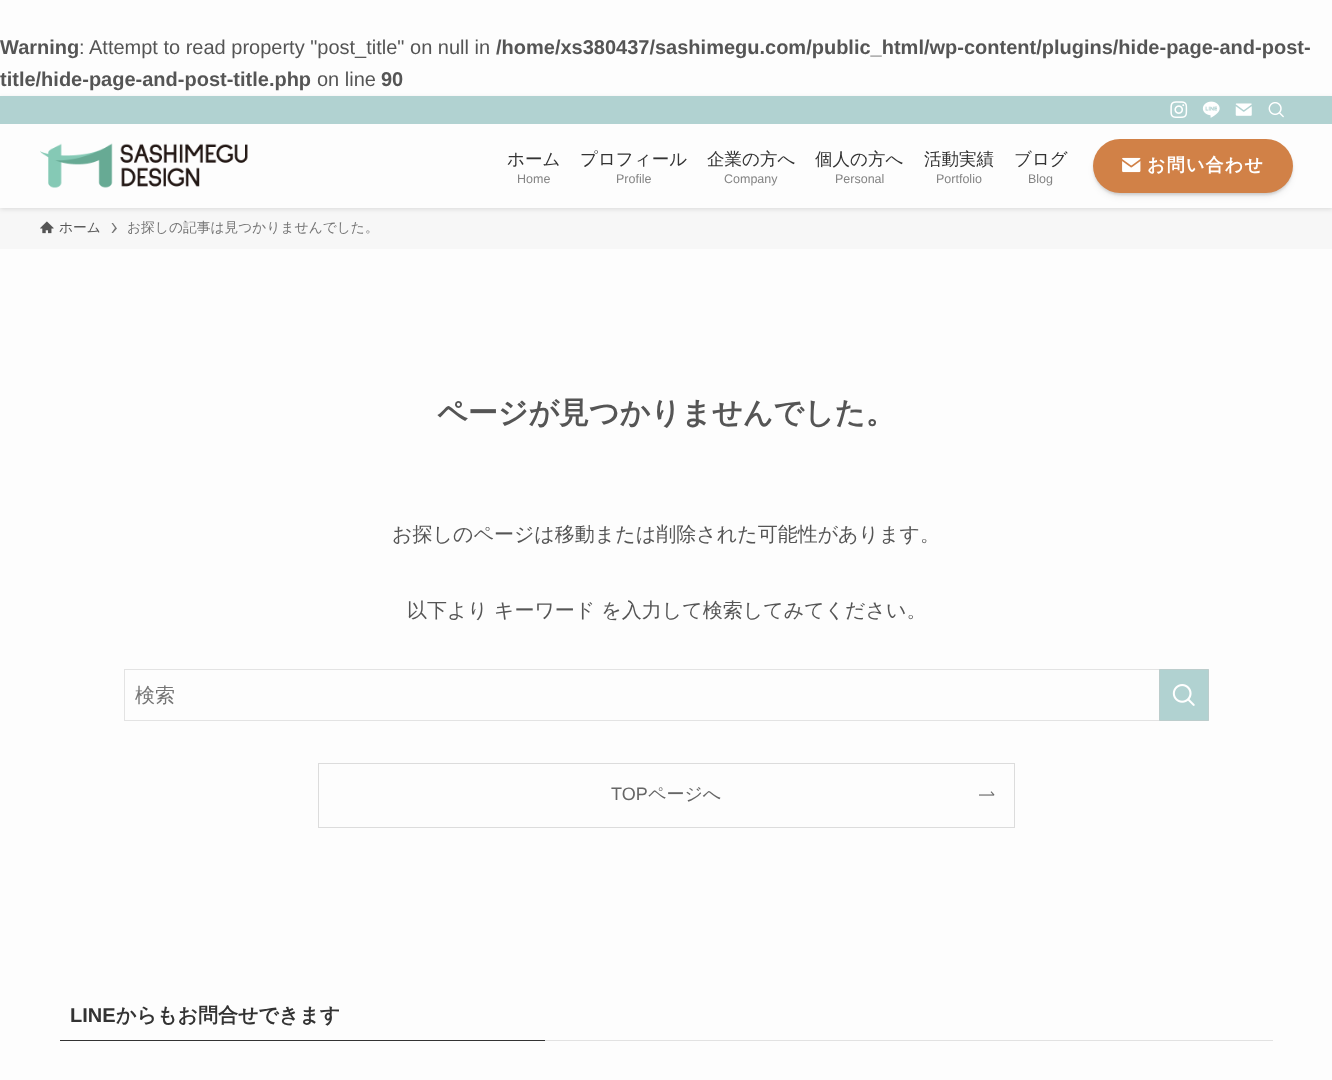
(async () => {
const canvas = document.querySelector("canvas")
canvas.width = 1332
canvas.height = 1080
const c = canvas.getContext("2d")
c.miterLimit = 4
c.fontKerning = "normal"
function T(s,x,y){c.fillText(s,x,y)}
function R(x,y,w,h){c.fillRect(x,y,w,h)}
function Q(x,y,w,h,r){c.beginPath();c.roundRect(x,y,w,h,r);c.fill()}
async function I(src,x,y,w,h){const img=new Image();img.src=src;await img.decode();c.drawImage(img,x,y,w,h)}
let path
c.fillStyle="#fdfdfd"
R(0,0,1332,1080)
c.font="bold 20px Liberation Sans"
c.fillStyle="#555"
T("Warning",0,54)
c.font="20px Liberation Sans"
T(":",79,54)
T("Attempt to read property \"post_title\" on null in",89,54)
c.font="bold 20px Liberation Sans"
T("/home/xs380437/sashimegu.com/public_html/wp-content/plugins/hide-page-and-post-",496,54)
T("title/hide-page-and-post-title.php",0,86)
c.font="20px Liberation Sans"
T("on line",317,86)
c.font="bold 20px Liberation Sans"
T("90",381,86)
c.fillStyle="#f7f7f7"
R(0,208,1332,41)
c.fillStyle="#0000001f"
c.filter="blur(2.5px)"
c.beginPath()
c.rect(0,98,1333,111)
c.fill()
c.filter="none"
c.fillStyle="#fdfdfd"
R(0,124,1332,84)
c.fillStyle="#b1d2d1"
R(0,96,1332,28)
await I("1.png",1170,101,18,17)
await I("2.png",1202,101,18,17)
await I("3.png",1235,103,17,13)
await I("4.png",1268,102,16,16)
await I("5.png",40,143,208,45)
c.font="500 17.5px WenQuanYi Zen Hei"
c.fillStyle="#333"
T("ホーム",507,165)
c.font="12.5px Liberation Sans"
c.fillStyle="#848484"
T("Home",517,183)
c.font="500 17.5px WenQuanYi Zen Hei"
c.fillStyle="#333"
T("プロフィール",580,165)
c.font="12.5px Liberation Sans"
c.fillStyle="#848484"
T("Profile",616,183)
c.font="500 17.5px WenQuanYi Zen Hei"
c.fillStyle="#333"
T("企業の方へ",707,165)
c.font="12.5px Liberation Sans"
c.fillStyle="#848484"
T("Company",724,183)
c.font="500 17.5px WenQuanYi Zen Hei"
c.fillStyle="#333"
T("個人の方へ",815,165)
c.font="12.5px Liberation Sans"
c.fillStyle="#848484"
T("Personal",835,183)
c.font="500 17.5px WenQuanYi Zen Hei"
c.fillStyle="#333"
T("活動実績",924,165)
c.font="12.5px Liberation Sans"
c.fillStyle="#848484"
T("Portfolio",936,183)
c.font="500 17.5px WenQuanYi Zen Hei"
c.fillStyle="#333"
T("ブログ",1014,165)
c.font="12.5px Liberation Sans"
c.fillStyle="#848484"
T("Blog",1028,183)
c.fillStyle="#00000033"
c.filter="blur(5px)"
c.beginPath()
c.roundRect(1098,149,190,44,22)
c.fill()
c.filter="none"
c.fillStyle="#0000001a"
c.filter="blur(1px)"
c.beginPath()
c.roundRect(1093,141,200,54,27)
c.fill()
c.filter="none"
c.fillStyle="#d18147"
Q(1093,139,200,54,27)
await I("6.png",1122,157,19,16)
c.letterSpacing="1.25px"
c.font="bold 18px WenQuanYi Zen Hei"
c.fillStyle="#fff"
T("お問い合わせ",1147,171)
await I("7.png",40,221,14,13)
c.letterSpacing="0px"
c.font="500 13.75px WenQuanYi Zen Hei"
c.fillStyle="#555"
T("ホーム",59,232)
c.fillStyle="#757575"
path = new Path2D("M113 223h-1.5l3.5 5l-3.5 5h1.5l4-4.5z")
c.fill(path)
T("お探しの記事は見つかりませんでした。",127,232)
c.font="bold 30px WenQuanYi Zen Hei"
c.fillStyle="#555"
T("ページが見つかりませんでした。",437,423)
c.font="500 20px WenQuanYi Zen Hei"
T("お探しのページは移動または削除された可能性があります。",392,541)
T("以下より キーワード を入力して検索してみてください。",407,617)
c.strokeStyle="#e3e3e3"
c.strokeRect(124.5,669.5,1084,51)
c.fillStyle="#757575"
T("検索",135,702)
c.fillStyle="#b1d2d1"
c.beginPath()
c.rect(1159.5,669.5,49,51)
c.fill()
c.strokeStyle="#bccdcc"
c.stroke()
await I("8.png",1172,684,23,22)
c.strokeStyle="#dcdcdc"
c.strokeRect(318.5,763.5,696,64)
c.font="18px Liberation Sans"
c.fillStyle="#666"
T("TOP",611,800)
c.font="500 18px WenQuanYi Zen Hei"
T("ページへ",648,800)
await I("9.png",979,791,16,5)
c.font="bold 20px Liberation Sans"
c.fillStyle="#333"
T("LINE",70,1022)
c.font="bold 20px WenQuanYi Zen Hei"
T("からもお問合せできます",116,1022)
R(60,1040,485,1)
c.fillStyle="#e2e2e2"
R(545,1040,728,1)
})()
